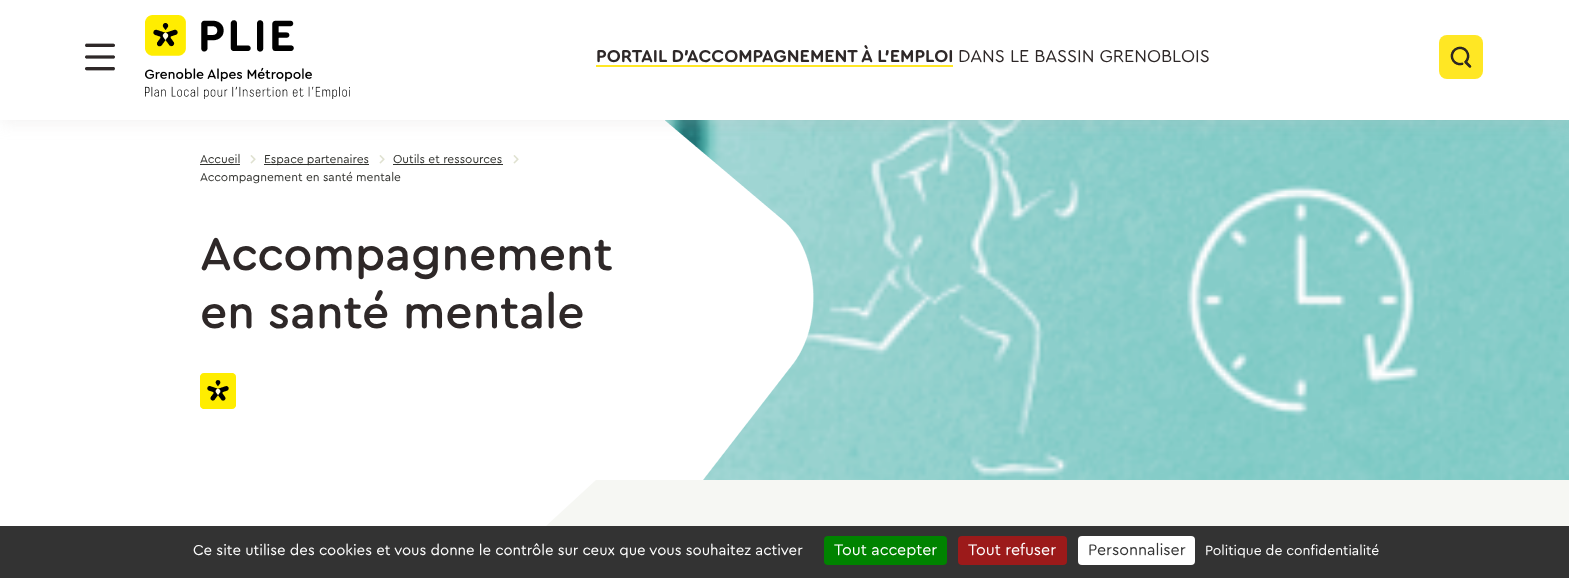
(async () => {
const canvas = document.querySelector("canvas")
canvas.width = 1569
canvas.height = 578
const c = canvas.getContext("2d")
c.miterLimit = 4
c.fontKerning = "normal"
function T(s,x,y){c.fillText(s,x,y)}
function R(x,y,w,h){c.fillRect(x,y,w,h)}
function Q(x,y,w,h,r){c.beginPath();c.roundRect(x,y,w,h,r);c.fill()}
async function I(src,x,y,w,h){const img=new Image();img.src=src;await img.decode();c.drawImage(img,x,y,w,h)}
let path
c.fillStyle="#f6f7f3"
R(0,0,1569,578)
c.fillStyle="#fff"
R(200,120,465,360)
c.font="12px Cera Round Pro"
c.fillStyle="#30312d"
T("Accueil",200,163)
T("Accompagnement en santé mentale",200,181)
c.fillStyle="#fff"
R(0,120,200,360)
await I("7.png",665,120,904,360)
await I("5.png",665,120,149,360)
c.fillStyle="#c9c2c233"
c.filter="blur(7.5px)"
c.beginPath()
c.rect(0,4,1569,120)
c.fill()
c.filter="none"
c.fillStyle="#fff"
R(0,0,1569,120)
await I("1.png",85,43,30,28)
await I("2.png",145,15,205,84)
c.font="bold 18px Cera Round Pro"
c.fillStyle="#2e2828"
T("PORTAIL D’ACCOMPAGNEMENT À L’EMPLOI",596,62)
c.fillStyle="#ffe724"
R(596,65,357,2)
c.font="18px Cera Round Pro"
c.fillStyle="#2e2828"
T("DANS LE BASSIN GRENOBLOIS",958,62)
c.fillStyle="#ffe724"
Q(1439,35,44,44,8)
await I("3.png",1450,46,22,22)
c.fillStyle="#30312d"
R(200,164,40,1)
await I("4.png",250,155,6,9)
R(264,164,105,1)
c.font="12px Cera Round Pro"
T("Espace partenaires",264,163)
await I("4.png",379,155,6,9)
T("Outils et ressources",393,163)
R(393,164,110,1)
await I("4.png",513,155,6,9)
c.font="500 48px Cera Round Pro"
c.fillStyle="#2e2828"
T("Accompagnement",200,270)
T("en santé mentale",200,328)
await I("6.png",200,373,36,36)
c.fillStyle="#fff"
path = new Path2D("M0 480h596l-596 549z")
c.fill(path)
c.fillStyle="#333"
R(0,526,1569,52)
c.font="15px Cera Round Pro"
c.fillStyle="#fff"
T("Ce site utilise des cookies et vous donne le contrôle sur ceux que vous souhaitez activer",193,555)
c.fillStyle="#008300"
Q(824,536,123,29,4)
c.font="16px Cera Round Pro"
c.fillStyle="#fff"
T("Tout accepter",834,555)
c.fillStyle="#9c1a1a"
Q(958,536,109,29,4)
c.fillStyle="#fff"
T("Tout refuser",968,555)
Q(1078,536,117,29,4)
c.fillStyle="#333"
T("Personnaliser",1088,555)
c.font="14px Cera Round Pro"
c.fillStyle="#fff"
T("Politique de confidentialité",1205,555)
})()
